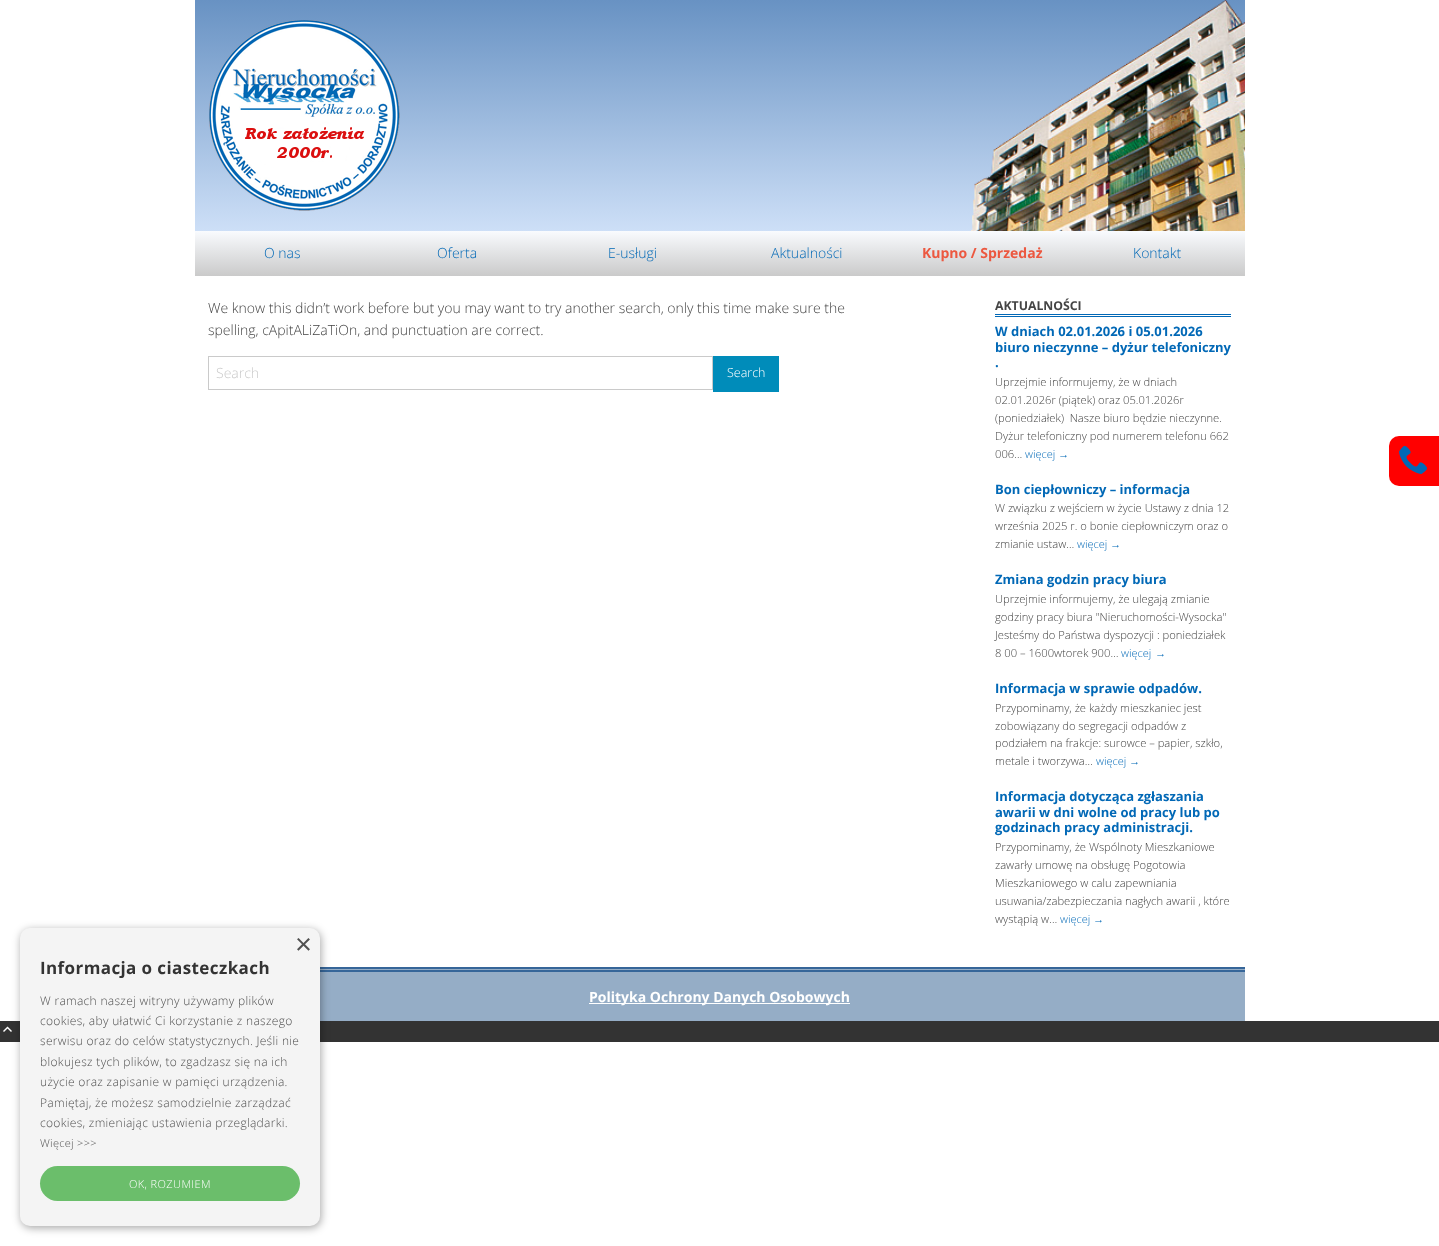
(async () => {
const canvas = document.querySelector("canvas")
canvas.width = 1439
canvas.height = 1246
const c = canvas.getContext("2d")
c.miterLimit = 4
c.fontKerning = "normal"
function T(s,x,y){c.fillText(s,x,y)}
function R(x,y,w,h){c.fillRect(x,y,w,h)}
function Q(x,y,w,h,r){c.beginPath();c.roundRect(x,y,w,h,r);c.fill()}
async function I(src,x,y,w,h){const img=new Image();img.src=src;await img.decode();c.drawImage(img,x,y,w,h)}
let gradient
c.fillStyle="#fff"
R(0,0,1439,1246)
gradient = c.createLinearGradient(720,0,720,231)
gradient.addColorStop(0,"#6892c3")
gradient.addColorStop(1,"#cddff7")
c.fillStyle = gradient
R(195,0,1050,231)
await I("1.png",971,0,274,231)
await I("2.png",209,20,191,191)
gradient = c.createLinearGradient(720,231,720,276)
gradient.addColorStop(0,"#f9fbfe")
gradient.addColorStop(1,"#cacaca")
c.fillStyle = gradient
R(195,231,1050,45)
c.font="300 14px Open Sans"
c.fillStyle="#0168b6"
T("O nas",264,258)
T("Oferta",437,258)
T("E-usługi",608,258)
T("Aktualności",771,258)
c.font="bold 14px Open Sans"
c.fillStyle="#ec5840"
T("Kupno / Sprzedaż",922,258)
c.font="300 14px Open Sans"
c.fillStyle="#0168b6"
T("Kontakt",1133,258)
c.fillStyle="#444"
T("We know this didn’t work before but you may want to try another search, only this time make sure the",208,313)
T("spelling, cApitALiZaTiOn, and punctuation are correct.",208,335)
c.strokeStyle="#cacaca"
c.strokeRect(208.5,356.5,504,33)
c.fillStyle="#cacaca"
T("Search",216,378)
c.fillStyle="#008cba"
R(713,356,66,36)
c.font="300 12.5px Open Sans"
c.fillStyle="#fff"
T("Search",727,377)
c.fillStyle="#0168b6"
R(995,314,236,1)
R(995,316,236,1)
c.font="bold 12.25px Open Sans"
c.fillStyle="#444"
T("AKTUALNOŚCI",995,310)
c.font="bold 13px Open Sans"
c.fillStyle="#0168b6"
T("W dniach 02.01.2026 i 05.01.2026",995,336)
T("biuro nieczynne – dyżur telefoniczny",995,352)
T(".",995,367)
c.font="300 11.2px Open Sans"
c.fillStyle="#444"
T("Uprzejmie informujemy, że w dniach",995,386)
T("02.01.2026r (piątek) oraz 05.01.2026r",995,404)
T("(poniedziałek)  Nasze biuro będzie nieczynne.",995,422)
T("Dyżur telefoniczny pod numerem telefonu 662",995,440)
T("006…",995,458)
c.font="300 11px Open Sans"
c.fillStyle="#0168b6"
T("więcej",1025,458)
c.font="11px Liberation Sans"
T("→",1058,458)
c.font="bold 13px Open Sans"
T("Bon ciepłowniczy – informacja",995,494)
c.font="300 11.2px Open Sans"
c.fillStyle="#444"
T("W związku z wejściem w życie Ustawy z dnia 12",995,512)
T("września 2025 r. o bonie ciepłowniczym oraz o",995,530)
T("zmianie ustaw…",995,548)
c.font="300 11px Open Sans"
c.fillStyle="#0168b6"
T("więcej",1077,548)
c.font="11px Liberation Sans"
T("→",1110,548)
c.font="bold 13px Open Sans"
T("Zmiana godzin pracy biura",995,584)
c.font="300 11.2px Open Sans"
c.fillStyle="#444"
T("Uprzejmie informujemy, że ulegają zmianie",995,603)
T("godziny pracy biura \"Nieruchomości-Wysocka\"",995,621)
T("Jesteśmy do Państwa dyspozycji : poniedziałek",995,639)
T("8 00 – 1600wtorek 900…",995,657)
c.font="300 11px Open Sans"
c.fillStyle="#0168b6"
T("więcej",1121,657)
c.font="11px Liberation Sans"
T("→",1155,657)
c.font="bold 13px Open Sans"
T("Informacja w sprawie odpadów.",995,693)
c.font="300 11.2px Open Sans"
c.fillStyle="#444"
T("Przypominamy, że każdy mieszkaniec jest",995,712)
T("zobowiązany do segregacji odpadów z",995,730)
T("podziałem na frakcje: surowce – papier, szkło,",995,747)
T("metale i tworzywa…",995,765)
c.font="300 11px Open Sans"
c.fillStyle="#0168b6"
T("więcej",1096,765)
c.font="11px Liberation Sans"
T("→",1129,765)
c.font="bold 13px Open Sans"
T("Informacja dotycząca zgłaszania",995,801)
T("awarii w dni wolne od pracy lub po",995,817)
T("godzinach pracy administracji.",995,832)
c.font="300 11.2px Open Sans"
c.fillStyle="#444"
T("Przypominamy, że Wspólnoty Mieszkaniowe",995,851)
T("zawarły umowę na obsługę Pogotowia",995,869)
T("Mieszkaniowego w calu zapewniania",995,887)
T("usuwania/zabezpieczania nagłych awarii , które",995,905)
T("wystąpią w…",995,923)
c.font="300 11px Open Sans"
c.fillStyle="#0168b6"
T("więcej",1060,923)
c.font="11px Liberation Sans"
T("→",1093,923)
c.fillStyle="#f00"
c.beginPath()
c.roundRect(1389,436,50,50,[10,0,0,10])
c.fill()
await I("3.png",1399,445,29,29)
c.fillStyle="#95adc6"
R(320,969,925,52)
c.fillStyle="#366699"
R(320,967,925,2)
R(320,970,925,2)
c.fillStyle="#333"
R(0,1021,1439,21)
await I("4.png",3,1026,9,6)
c.fillStyle="#00000059"
c.filter="blur(4px)"
c.beginPath()
c.roundRect(21,930,300,298,10)
c.fill()
c.filter="none"
c.fillStyle="#f4f4f4"
Q(20,928,300,298,10)
c.font="29px Liberation Sans"
c.fillStyle="#505050"
T("×",295,954)
c.letterSpacing="0.4px"
c.font="bold 17px Open Sans"
c.fillStyle="#333"
T("Informacja o ciasteczkach",40,974)
c.letterSpacing="0.3px"
c.font="300 12px Open Sans"
c.fillStyle="#505050"
T("W ramach naszej witryny używamy plików",40,1005)
T("cookies, aby ułatwić Ci korzystanie z naszego",40,1025)
T("serwisu oraz do celów statystycznych. Jeśli nie",40,1045)
T("blokujesz tych plików, to zgadzasz się na ich",40,1066)
T("użycie oraz zapisanie w pamięci urządzenia.",40,1086)
T("Pamiętaj, że możesz samodzielnie zarządzać",40,1107)
T("cookies, zmieniając ustawienia przeglądarki.",40,1127)
c.font="300 11px Open Sans"
T("Więcej >>>",40,1147)
c.fillStyle="#6bbe6b"
Q(40,1166,260,35,17.5)
c.letterSpacing="0.4px"
c.fillStyle="#fff"
T("OK, ROZUMIEM",129,1188)
R(589,1003,261,1)
c.letterSpacing="0px"
c.font="bold 14px Open Sans"
T("Polityka Ochrony Danych Osobowych",589,1002)
})()
